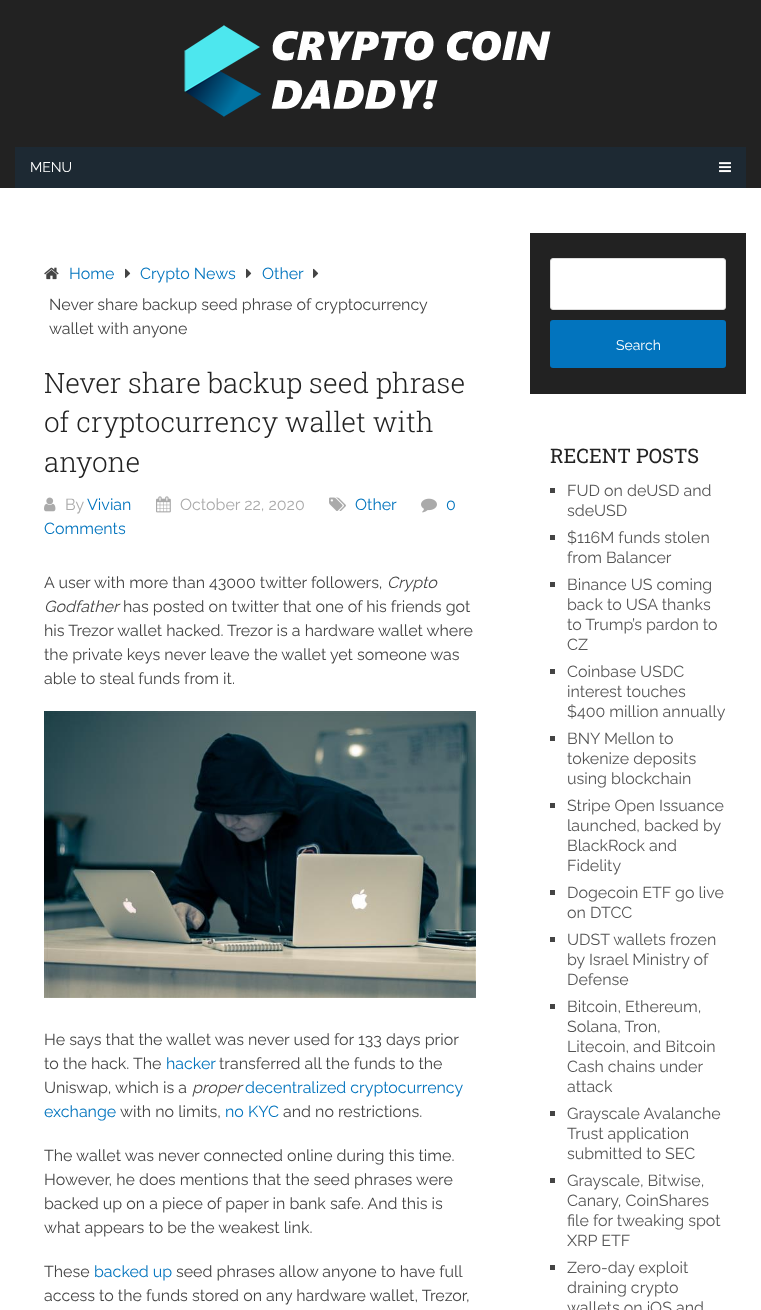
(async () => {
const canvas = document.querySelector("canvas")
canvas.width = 761
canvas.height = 1310
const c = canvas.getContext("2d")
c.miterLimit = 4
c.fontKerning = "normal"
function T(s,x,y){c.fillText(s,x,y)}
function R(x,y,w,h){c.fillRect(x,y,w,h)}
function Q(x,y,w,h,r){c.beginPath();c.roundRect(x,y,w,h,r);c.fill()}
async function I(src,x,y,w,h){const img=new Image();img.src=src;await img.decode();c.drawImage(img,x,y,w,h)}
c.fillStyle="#fff"
R(0,0,761,1310)
c.fillStyle="#222"
R(0,0,761,188)
await I("1.png",184,25,367,92)
c.fillStyle="#1d2933"
R(15,147,731,41)
c.font="14px Raleway"
c.fillStyle="#fff"
T("MENU",30,172)
await I("2.png",719,162,12,11)
await I("3.png",44,267,15,13)
c.font="16px Raleway"
c.fillStyle="#0274be"
T("Home",69,279)
await I("4.png",125,268,6,10)
T("Crypto News",140,279)
await I("4.png",246,268,6,10)
T("Other",262,279)
await I("4.png",313,268,6,10)
c.fillStyle="#444"
T("Never share backup seed phrase of cryptocurrency",49,310)
T("wallet with anyone",49,334)
c.font="300 28px Roboto Slab"
c.fillStyle="#222"
T("Never share backup seed phrase",44,393)
T("of cryptocurrency wallet with",44,432)
T("anyone",44,472)
await I("5.png",44,497,12,15)
c.font="16px Raleway"
c.fillStyle="#aaa"
T("By",65,510)
c.fillStyle="#0274be"
T("Vivian",87,510)
await I("6.png",156,496,15,17)
c.fillStyle="#aaa"
T("October 22, 2020",180,510)
await I("7.png",329,497,17,14)
c.fillStyle="#0274be"
T("Other",355,510)
await I("8.png",421,498,16,15)
T("0",446,510)
T("Comments",44,534)
c.fillStyle="#444"
T("A user with more than 43000 twitter followers,",44,588)
c.font="italic 16px Raleway"
T("Crypto",387,588)
T("Godfather",44,612)
c.font="16px Raleway"
T("has posted on twitter that one of his friends got",123,612)
T("his Trezor wallet hacked. Trezor is a hardware wallet where",44,636)
T("the private keys never leave the wallet yet someone was",44,660)
T("able to steal funds from it.",44,684)
await I("9.png",44,711,432,287)
T("He says that the wallet was never used for 133 days prior",44,1045)
T("to the hack. The",44,1069)
c.fillStyle="#0274be"
T("hacker",166,1069)
c.fillStyle="#444"
T("transferred all the funds to the",219,1069)
T("Uniswap, which is a",44,1093)
c.font="italic 16px Raleway"
T("proper",192,1093)
c.font="16px Raleway"
c.fillStyle="#0274be"
T("decentralized cryptocurrency",245,1093)
T("exchange",44,1117)
c.fillStyle="#444"
T("with no limits,",120,1117)
c.fillStyle="#0274be"
T("no KYC",225,1117)
c.fillStyle="#444"
T("and no restrictions.",283,1117)
T("The wallet was never connected online during this time.",44,1161)
T("However, he does mentions that the seed phrases were",44,1185)
T("backed up on a piece of paper in bank safe. And this is",44,1209)
T("what appears to be the weakest link.",44,1233)
T("These",44,1277)
c.fillStyle="#0274be"
T("backed up",94,1277)
c.fillStyle="#444"
T("seed phrases allow anyone to have full",176,1277)
T("access to the funds stored on any hardware wallet, Trezor,",44,1301)
c.fillStyle="#222"
R(530,233,216,161)
c.fillStyle="#fff"
c.beginPath()
c.roundRect(550.5,258.5,175,51,2.5)
c.fill()
c.strokeStyle="#ddd"
c.stroke()
c.fillStyle="#0274be"
Q(550,320,176,48,3)
c.font="14px Raleway"
c.fillStyle="#fff"
T("Search",616,350)
c.font="20px Roboto Slab"
c.fillStyle="#222"
T("RECENT POSTS",550,463)
c.fillStyle="#444"
R(550,488,5,5)
c.font="16px Raleway"
c.fillStyle="#555"
T("FUD on deUSD and",567,496)
T("sdeUSD",567,516)
c.fillStyle="#444"
R(550,535,5,5)
c.fillStyle="#555"
T("$116M funds stolen",567,543)
T("from Balancer",567,563)
c.fillStyle="#444"
R(550,582,5,5)
c.fillStyle="#555"
T("Binance US coming",567,590)
T("back to USA thanks",567,610)
T("to Trump’s pardon to",567,630)
T("CZ",567,650)
c.fillStyle="#444"
R(550,669,5,5)
c.fillStyle="#555"
T("Coinbase USDC",567,677)
T("interest touches",567,697)
T("$400 million annually",567,717)
c.fillStyle="#444"
R(550,736,5,5)
c.fillStyle="#555"
T("BNY Mellon to",567,744)
T("tokenize deposits",567,764)
T("using blockchain",567,784)
c.fillStyle="#444"
R(550,803,5,5)
c.fillStyle="#555"
T("Stripe Open Issuance",567,811)
T("launched, backed by",567,831)
T("BlackRock and",567,851)
T("Fidelity",567,871)
c.fillStyle="#444"
R(550,890,5,5)
c.fillStyle="#555"
T("Dogecoin ETF go live",567,898)
T("on DTCC",567,918)
c.fillStyle="#444"
R(550,937,5,5)
c.fillStyle="#555"
T("UDST wallets frozen",567,945)
T("by Israel Ministry of",567,965)
T("Defense",567,985)
c.fillStyle="#444"
R(550,1004,5,5)
c.fillStyle="#555"
T("Bitcoin, Ethereum,",567,1012)
T("Solana, Tron,",567,1032)
T("Litecoin, and Bitcoin",567,1052)
T("Cash chains under",567,1072)
T("attack",567,1092)
c.fillStyle="#444"
R(550,1111,5,5)
c.fillStyle="#555"
T("Grayscale Avalanche",567,1119)
T("Trust application",567,1139)
T("submitted to SEC",567,1159)
c.fillStyle="#444"
R(550,1178,5,5)
c.fillStyle="#555"
T("Grayscale, Bitwise,",567,1186)
T("Canary, CoinShares",567,1206)
T("file for tweaking spot",567,1226)
T("XRP ETF",567,1246)
c.fillStyle="#444"
R(550,1265,5,5)
c.fillStyle="#555"
T("Zero-day exploit",567,1273)
T("draining crypto",567,1293)
T("wallets on iOS and",567,1313)
})()
